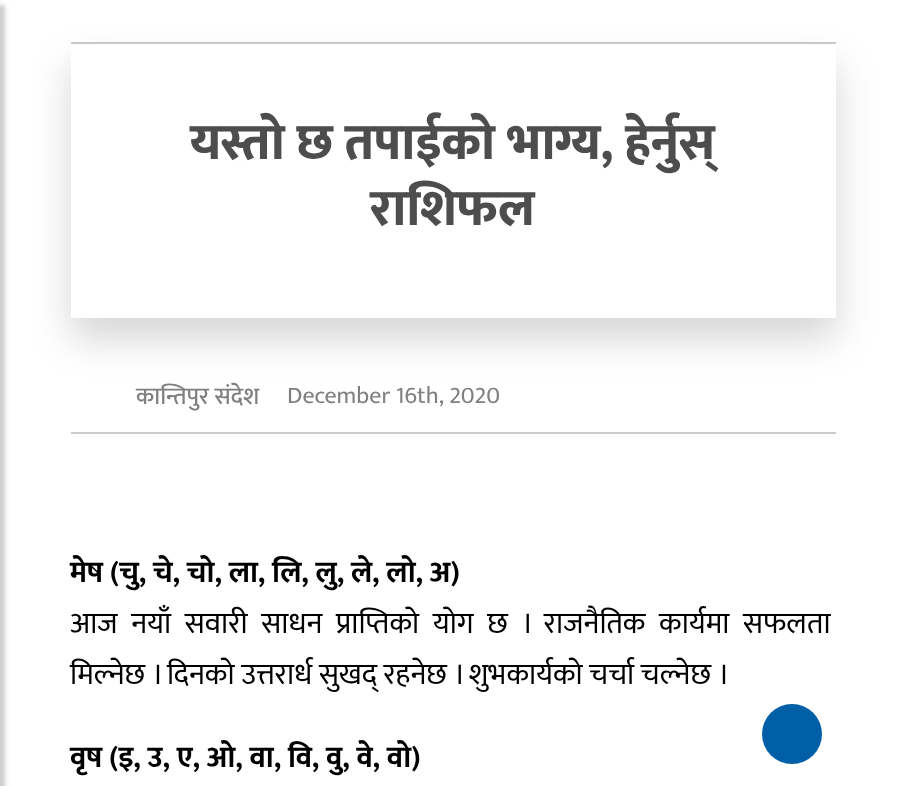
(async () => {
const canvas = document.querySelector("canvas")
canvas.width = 904
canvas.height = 786
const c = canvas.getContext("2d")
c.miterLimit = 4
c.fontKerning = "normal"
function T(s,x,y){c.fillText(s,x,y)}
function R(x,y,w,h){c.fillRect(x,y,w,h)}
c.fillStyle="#fff"
R(0,0,904,786)
c.fillStyle="#00000033"
c.filter="blur(2px)"
c.beginPath()
c.rect(-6,5,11,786)
c.fill()
c.filter="none"
c.fillStyle="#ccc"
R(71,42,765,2)
c.fillStyle="#00000029"
c.filter="blur(19px)"
c.beginPath()
c.rect(71,65,765,274)
c.fill()
c.filter="none"
c.fillStyle="#fff"
R(71,44,765,274)
c.font="800 51px Ek Mukta"
c.fillStyle="#4d4d4d"
T("यस्तो छ तपाईको भाग्य, हेर्नुस्",190,159)
T("राशिफल",370,225)
c.font="500 24px Ek Mukta"
c.fillStyle="#808080"
T("कान्तिपुर संदेश",136,404)
c.font="24px Ek Mukta"
T("December 16th, 2020",287,403)
c.fillStyle="#ccc"
R(71,432,765,2)
c.font="bold 30px Ek Mukta"
c.fillStyle="#000"
T("मेष (चु, चे, चो, ला, लि, लु, ले, लो, अ)",70,582)
c.wordSpacing="7px"
c.font="30px Ek Mukta"
T("आज नयाँ सवारी साधन प्राप्तिको योग छ । राजनैतिक कार्यमा सफलता",70,633)
c.wordSpacing="0px"
T("मिल्नेछ । दिनको उत्तरार्ध सुखद् रहनेछ । शुभकार्यको चर्चा चल्नेछ ।",70,684)
c.font="bold 30px Ek Mukta"
T("वृष (इ, उ, ए, ओ, वा, वि, वु, वे, वो)",70,767)
c.fillStyle="#015fa7"
c.beginPath()
c.arc(792,734,30,0,7)
c.fill()
})()
